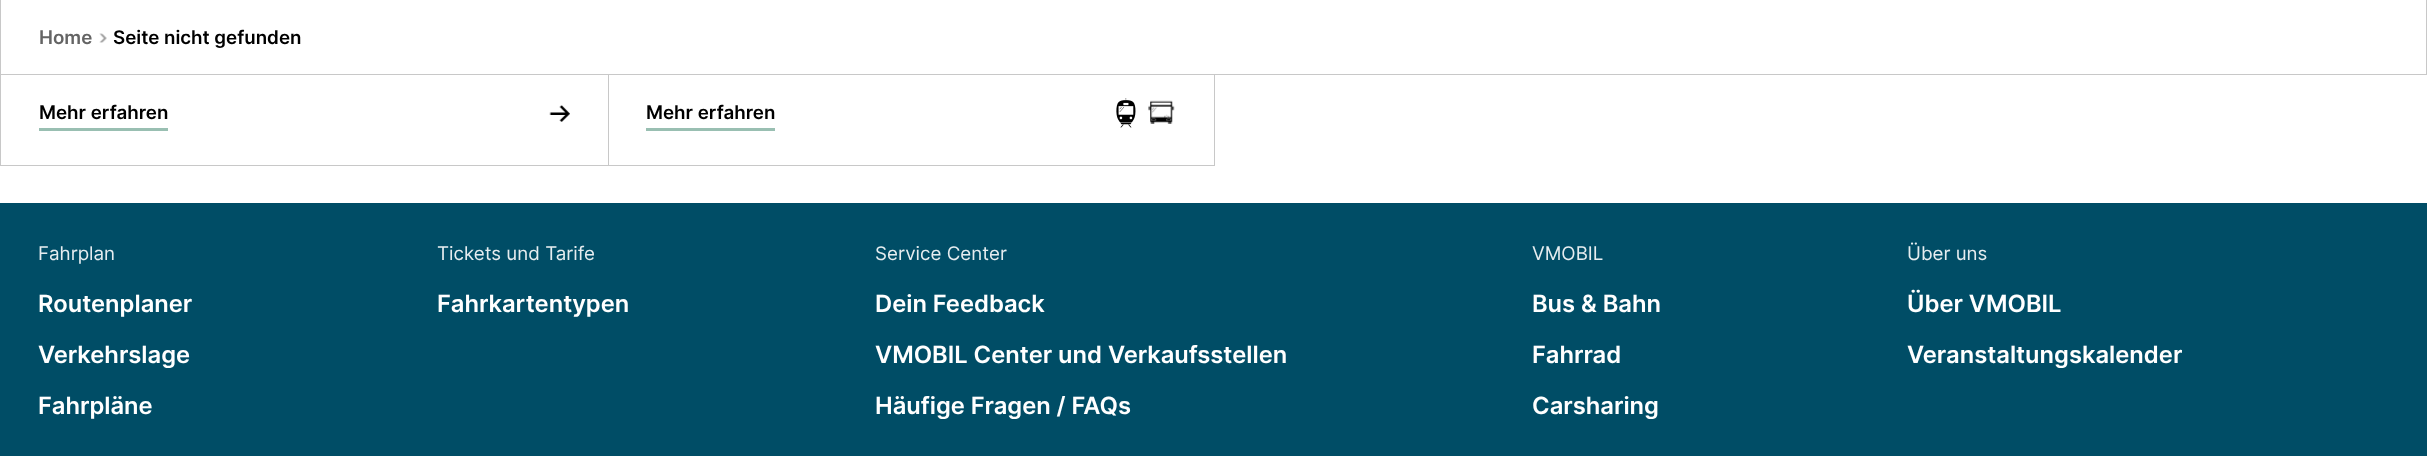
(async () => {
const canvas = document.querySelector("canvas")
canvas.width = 2427
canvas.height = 456
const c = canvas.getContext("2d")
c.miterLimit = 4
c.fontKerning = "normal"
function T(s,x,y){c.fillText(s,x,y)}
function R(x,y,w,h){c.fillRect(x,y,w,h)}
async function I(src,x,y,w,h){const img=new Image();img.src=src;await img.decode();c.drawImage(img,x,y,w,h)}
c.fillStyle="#fff"
R(0,0,2427,456)
c.strokeStyle="#c8c8c8"
c.strokeRect(.5,-.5,608,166)
c.strokeRect(608.5,-.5,606,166)
R(608,0,607,74)
c.fillStyle="#c8c8c8"
R(2426,0,1,75)
R(0,74,2427,1)
c.font="600 18.75px Inter"
c.fillStyle="#646464"
T("Home",39,44)
await I("1.png",99,33,8,10)
c.fillStyle="#000"
T("Seite nicht gefunden",113,44)
T("Mehr erfahren",39,119)
c.fillStyle="#99bfb2"
R(39,128,129,3)
await I("2.png",549,105,21,17)
c.fillStyle="#000"
T("Mehr erfahren",646,119)
c.fillStyle="#99bfb2"
R(646,128,129,3)
await I("3.png",1116,98,20,30)
await I("4.png",1148,100,27,24)
c.fillStyle="#004d66"
R(0,203,2427,253)
c.font="18.75px Inter"
c.fillStyle="#e6edf0"
T("Fahrplan",38,260)
c.font="600 23.75px Inter"
c.fillStyle="#fff"
T("Routenplaner",38,312)
T("Verkehrslage",38,363)
T("Fahrpläne",38,414)
c.font="18.75px Inter"
c.fillStyle="#e6edf0"
T("Tickets und Tarife",437,260)
c.font="600 23.75px Inter"
c.fillStyle="#fff"
T("Fahrkartentypen",437,312)
c.font="18.75px Inter"
c.fillStyle="#e6edf0"
T("Service Center",875,260)
c.font="600 23.75px Inter"
c.fillStyle="#fff"
T("Dein Feedback",875,312)
T("VMOBIL Center und Verkaufsstellen",875,363)
T("Häufige Fragen / FAQs",875,414)
c.font="18.75px Inter"
c.fillStyle="#e6edf0"
T("VMOBIL",1532,260)
c.font="600 23.75px Inter"
c.fillStyle="#fff"
T("Bus & Bahn",1532,312)
T("Fahrrad",1532,363)
T("Carsharing",1532,414)
c.font="18.75px Inter"
c.fillStyle="#e6edf0"
T("Über uns",1907,260)
c.font="600 23.75px Inter"
c.fillStyle="#fff"
T("Über VMOBIL",1907,312)
T("Veranstaltungskalender",1907,363)
})()
